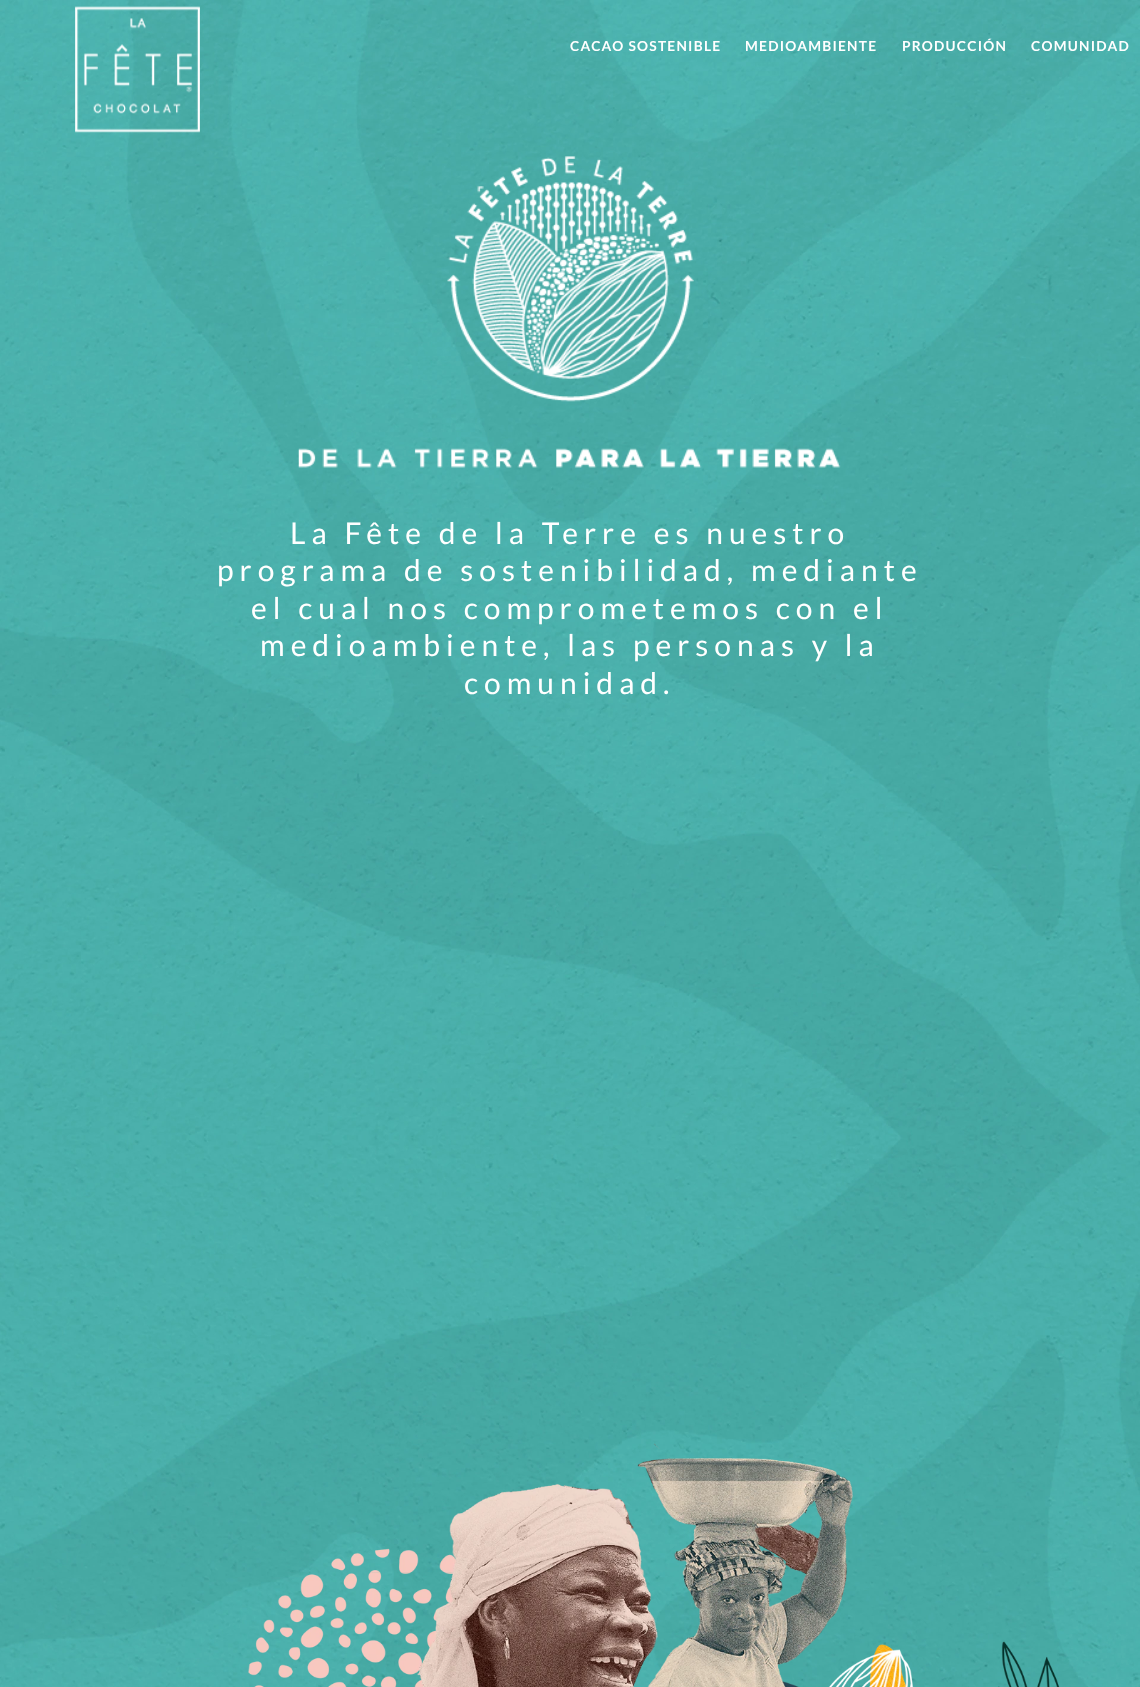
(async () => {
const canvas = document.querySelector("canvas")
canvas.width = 1140
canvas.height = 1687
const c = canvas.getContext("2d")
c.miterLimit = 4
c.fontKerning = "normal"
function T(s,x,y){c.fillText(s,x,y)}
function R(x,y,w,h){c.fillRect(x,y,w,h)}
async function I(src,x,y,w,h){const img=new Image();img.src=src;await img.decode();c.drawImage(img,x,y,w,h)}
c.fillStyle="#fff"
R(0,0,1140,1687)
await I("1.png",0,0,1140,1687)
await I("2.png",75,6,125,127)
c.letterSpacing="1.25px"
c.font="bold 13.75px Lato"
T("CACAO SOSTENIBLE",570,51)
T("MEDIOAMBIENTE",745,51)
T("PRODUCCIÓN",902,51)
T("COMUNIDAD",1031,51)
await I("3.png",298,156,543,312)
c.letterSpacing="6px"
c.font="30px Lato"
T("La Fête de la Terre es nuestro",290,544)
T("programa de sostenibilidad, mediante",217,581)
T("el cual nos comprometemos con el",251,619)
T("medioambiente, las personas y la",260,656)
T("comunidad.",464,694)
await I("4.png",248,1443,812,244)
})()
